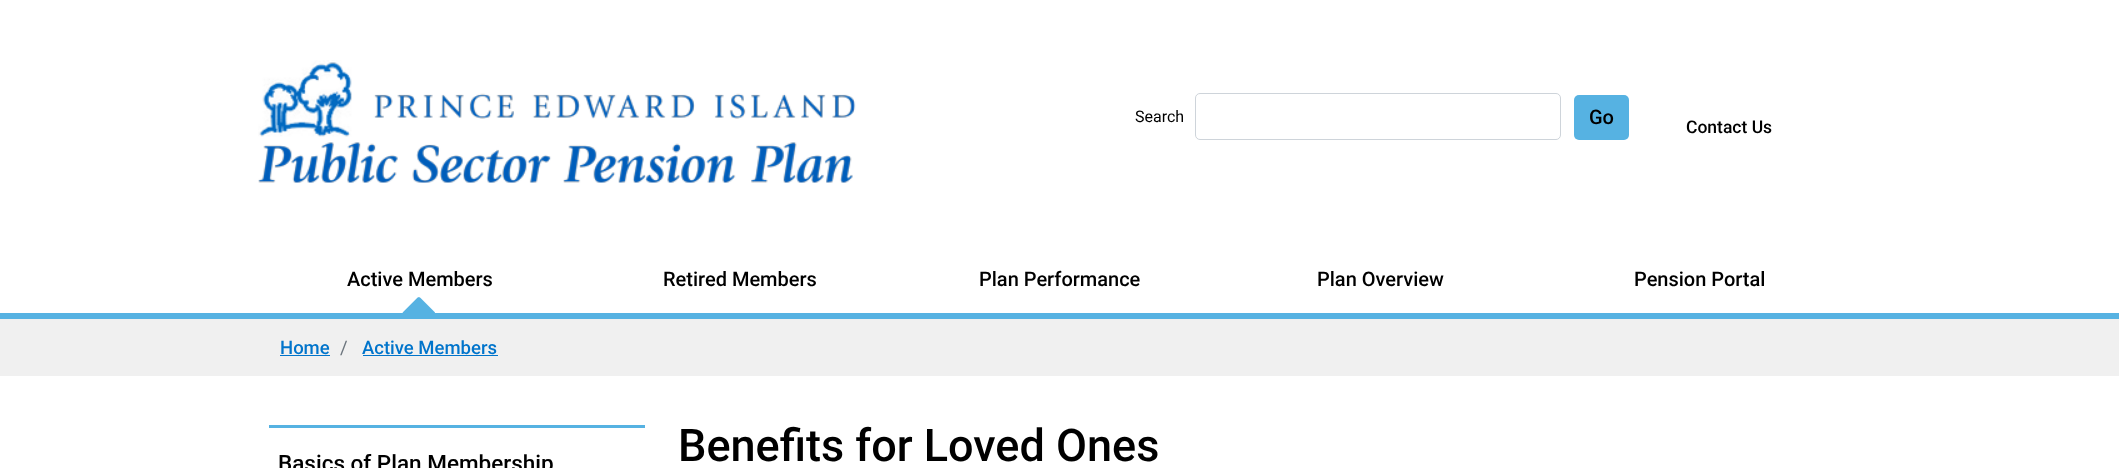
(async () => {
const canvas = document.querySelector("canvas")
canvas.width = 2119
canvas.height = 468
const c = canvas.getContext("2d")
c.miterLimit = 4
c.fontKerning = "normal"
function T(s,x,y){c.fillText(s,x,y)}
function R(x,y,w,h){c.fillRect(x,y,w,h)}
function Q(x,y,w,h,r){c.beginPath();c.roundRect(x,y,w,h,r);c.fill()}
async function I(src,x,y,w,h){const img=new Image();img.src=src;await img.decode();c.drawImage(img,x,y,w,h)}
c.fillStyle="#fff"
R(0,0,2119,468)
c.fillStyle="#56b2e2"
R(0,313,2119,6)
await I("1.png",258,60,598,123)
c.font="16px Roboto"
c.fillStyle="#000"
T("Search",1135,122)
c.beginPath()
c.roundRect(1195.5,93.5,365,46,4.5)
c.strokeStyle="#ced4da"
c.stroke()
c.fillStyle="#56b2e2"
Q(1574,95,55,45,5)
c.font="500 20px Roboto"
c.fillStyle="#000"
T("Go",1589,124)
c.font="500 17.5px Roboto"
T("Contact Us",1686,133)
c.font="500 20px Roboto"
T("Active Members",347,286)
await I("2.png",402,297,33,16)
T("Retired Members",663,286)
T("Plan Performance",979,286)
T("Plan Overview",1317,286)
T("Pension Portal",1634,286)
c.fillStyle="#f0f0f0"
R(0,319,2119,57)
c.font="500 18.5px Roboto"
c.fillStyle="#0074cb"
T("Home",280,354)
R(280,355,50,1)
c.font="18.5px Roboto"
c.fillStyle="#6c757d"
T("/",340,354)
c.font="500 18.5px Roboto"
c.fillStyle="#0074cb"
T("Active Members",362,354)
R(363,355,135,1)
c.fillStyle="#56b2e2"
R(269,425,376,3)
c.font="500 22.5px Roboto"
c.fillStyle="#000"
T("Basics of Plan Membership",278,471)
c.font="500 45px Roboto"
T("Benefits for Loved Ones",678,461)
})()
